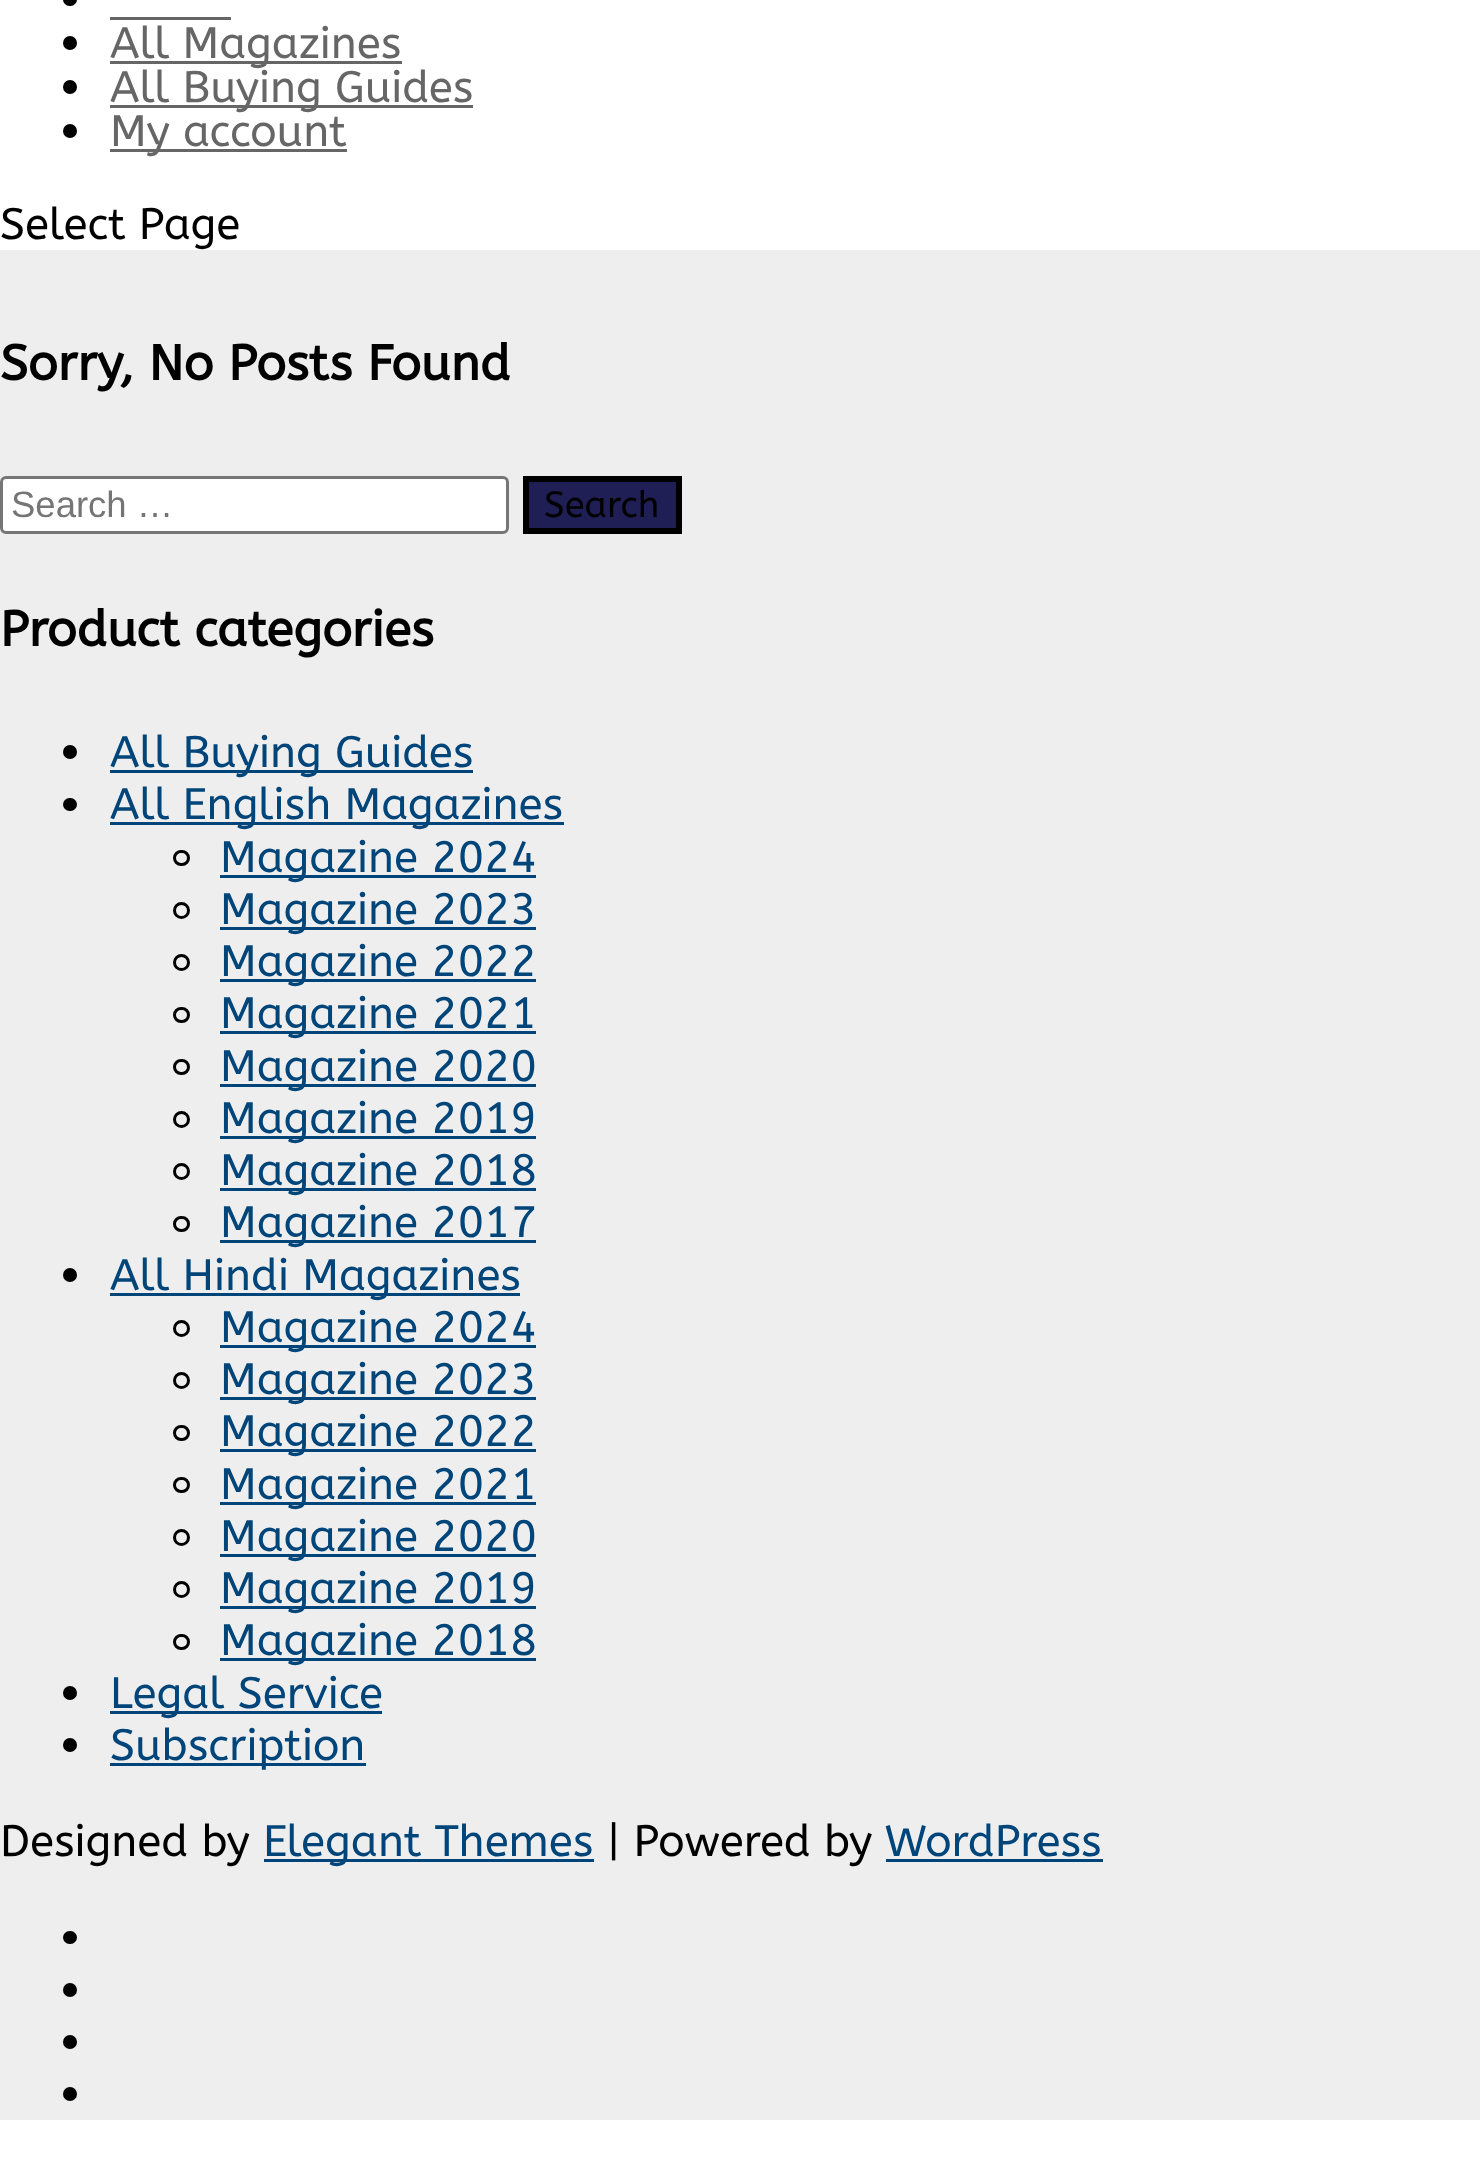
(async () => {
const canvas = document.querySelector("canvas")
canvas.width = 1480
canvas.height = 2164
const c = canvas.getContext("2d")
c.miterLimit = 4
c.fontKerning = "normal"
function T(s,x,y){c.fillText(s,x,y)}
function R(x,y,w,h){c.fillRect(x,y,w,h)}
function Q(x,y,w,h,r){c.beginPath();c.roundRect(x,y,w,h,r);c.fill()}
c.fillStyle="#fff"
R(0,0,1480,2164)
c.fillStyle="#eee"
R(0,250,1480,1870)
c.fillStyle="#000"
Q(63,-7,14,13,7)
c.fillStyle="#666"
R(110,17,121,3)
c.fillStyle="#000"
c.beginPath()
c.arc(70,43,7,0,7)
c.fill()
c.fillStyle="#666"
R(110,61,292,3)
c.font="44px ABeeZee"
T("All Magazines",110,58)
c.fillStyle="#000"
c.beginPath()
c.arc(70,87,7,0,7)
c.fill()
c.fillStyle="#666"
R(110,105,363,3)
T("All Buying Guides",110,102)
c.fillStyle="#000"
c.beginPath()
c.arc(70,131,7,0,7)
c.fill()
c.fillStyle="#666"
R(110,149,237,3)
T("My account",110,146)
c.fillStyle="#000"
T("Select Page",0,239)
c.font="bold 49.5px ABeeZee"
T("Sorry, No Posts Found",0,380)
c.fillStyle="#fff"
c.beginPath()
c.roundRect(1.5,477.5,506,55,4.5)
c.fill()
c.strokeStyle="#767676"
c.lineWidth=3
c.stroke()
c.font="36.5px Liberation Sans"
c.fillStyle="#757575"
T("Search …",11,517)
c.fillStyle="#1f1f56"
c.beginPath()
c.rect(526,479,153,52)
c.fill()
c.strokeStyle="#000"
c.lineWidth=6
c.stroke()
c.font="36.5px ABeeZee"
c.fillStyle="#000"
T("Search",544,517)
c.font="bold 49.5px ABeeZee"
T("Product categories",0,646)
c.beginPath()
c.arc(70,752,7,0,7)
c.fill()
c.fillStyle="#00457a"
R(110,770,363,3)
c.font="44px ABeeZee"
T("All Buying Guides",110,767)
c.fillStyle="#000"
Q(63,798,14,13,6.5)
c.fillStyle="#00457a"
R(110,822,454,3)
T("All English Magazines",110,819)
c.beginPath()
c.roundRect(174.5,851.5,14,13,6.5)
c.lineWidth=3
c.stroke()
R(220,875,316,3)
T("Magazine 2024",220,872)
c.beginPath()
c.arc(181.5,910.5,7,0,7)
c.stroke()
R(220,927,316,3)
T("Magazine 2023",220,924)
c.beginPath()
c.arc(181.5,962.5,7,0,7)
c.stroke()
R(220,979,316,3)
T("Magazine 2022",220,976)
c.beginPath()
c.roundRect(174.5,1008.5,14,13,6.5)
c.stroke()
R(220,1031,316,3)
T("Magazine 2021",220,1028)
c.beginPath()
c.roundRect(174.5,1060.5,14,13,6.5)
c.stroke()
R(220,1084,316,3)
T("Magazine 2020",220,1081)
c.beginPath()
c.arc(181.5,1119.5,7,0,7)
c.stroke()
R(220,1136,316,3)
T("Magazine 2019",220,1133)
c.beginPath()
c.arc(181.5,1171.5,7,0,7)
c.stroke()
R(220,1188,316,3)
T("Magazine 2018",220,1185)
c.beginPath()
c.roundRect(174.5,1217.5,14,13,6.5)
c.stroke()
R(220,1240,316,3)
T("Magazine 2017",220,1237)
c.fillStyle="#000"
c.beginPath()
c.arc(70,1275,7,0,7)
c.fill()
c.fillStyle="#00457a"
R(110,1293,410,3)
T("All Hindi Magazines",110,1290)
c.beginPath()
c.arc(181.5,1328.5,7,0,7)
c.stroke()
R(220,1345,316,3)
T("Magazine 2024",220,1342)
c.beginPath()
c.arc(181.5,1380.5,7,0,7)
c.stroke()
R(220,1397,316,3)
T("Magazine 2023",220,1394)
c.beginPath()
c.roundRect(174.5,1426.5,14,13,6.5)
c.stroke()
R(220,1449,316,3)
T("Magazine 2022",220,1446)
c.beginPath()
c.roundRect(174.5,1478.5,14,13,6.5)
c.stroke()
R(220,1502,316,3)
T("Magazine 2021",220,1499)
c.beginPath()
c.arc(181.5,1537.5,7,0,7)
c.stroke()
R(220,1554,316,3)
T("Magazine 2020",220,1551)
c.beginPath()
c.arc(181.5,1589.5,7,0,7)
c.stroke()
R(220,1606,316,3)
T("Magazine 2019",220,1603)
c.beginPath()
c.roundRect(174.5,1635.5,14,13,6.5)
c.stroke()
R(220,1658,316,3)
T("Magazine 2018",220,1655)
c.fillStyle="#000"
c.beginPath()
c.arc(70,1693,7,0,7)
c.fill()
c.fillStyle="#00457a"
R(110,1711,272,3)
T("Legal Service",110,1708)
c.fillStyle="#000"
c.beginPath()
c.arc(70,1745,7,0,7)
c.fill()
c.fillStyle="#00457a"
R(110,1763,256,3)
T("Subscription",110,1760)
c.fillStyle="#000"
T("Designed by",0,1856)
c.fillStyle="#00457a"
R(264,1859,330,3)
T("Elegant Themes",263,1856)
c.fillStyle="#000"
T("| Powered by",607,1856)
c.fillStyle="#00457a"
T("WordPress",885,1856)
R(886,1859,217,3)
c.fillStyle="#000"
Q(63,1931,14,13,6.5)
c.beginPath()
c.arc(70,1990,7,0,7)
c.fill()
c.beginPath()
c.arc(70,2042,7,0,7)
c.fill()
c.beginPath()
c.arc(70,2094,7,0,7)
c.fill()
})()
